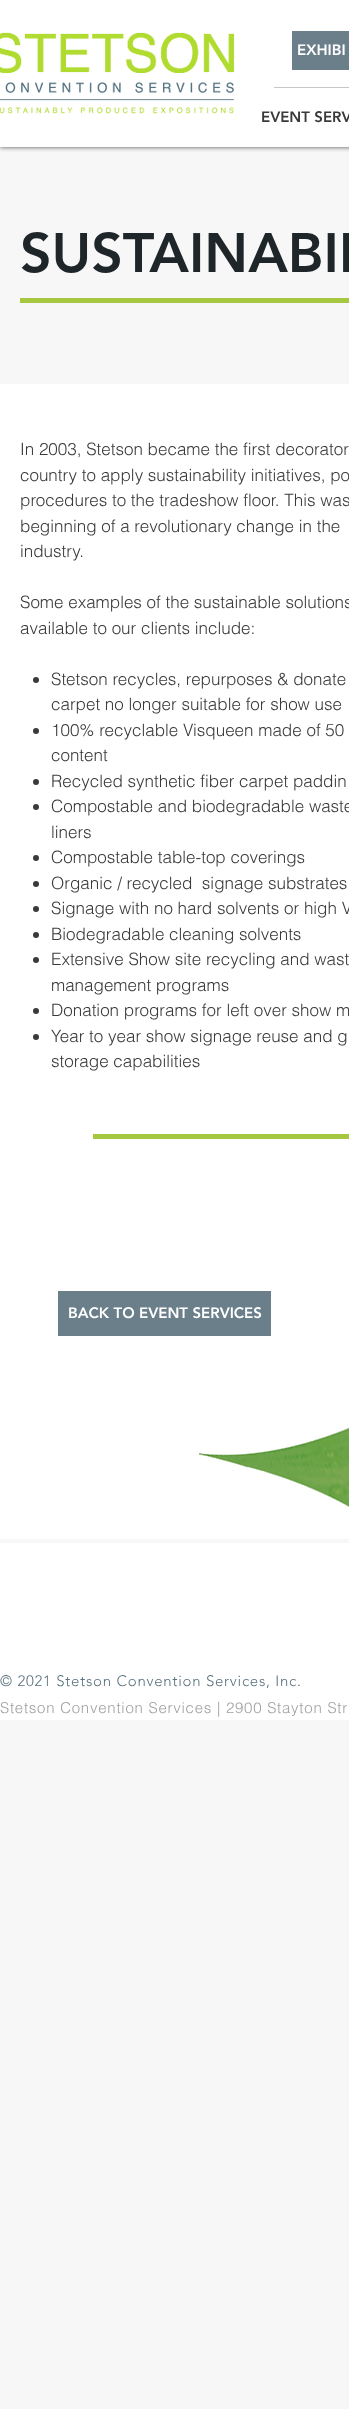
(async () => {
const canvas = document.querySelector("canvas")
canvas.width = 349
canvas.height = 2409
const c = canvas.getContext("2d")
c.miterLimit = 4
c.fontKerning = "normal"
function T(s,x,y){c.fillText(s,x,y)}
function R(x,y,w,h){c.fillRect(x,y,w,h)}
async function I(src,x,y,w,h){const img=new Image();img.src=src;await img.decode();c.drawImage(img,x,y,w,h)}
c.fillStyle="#f7f7f7"
R(0,0,349,2409)
c.fillStyle="#000000b3"
c.filter="blur(2.5px)"
c.beginPath()
c.rect(0,0,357,147)
c.fill()
c.filter="none"
c.fillStyle="#fff"
R(0,0,349,147)
await I("1.png",0,32,234,82)
c.fillStyle="#6a7f8a"
R(292,31,57,39)
c.font="900 15px 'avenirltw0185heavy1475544'"
c.fillStyle="#fff"
T("EXHIBI",297,55)
c.fillStyle="#c6c6c6"
R(274,87,75,1)
c.fillStyle="#3b3a3a"
T("EVENT SERV",261,122)
c.font="900 55px 'avenirltw0185heavy1475544'"
c.fillStyle="#1e262a"
T("SUSTAINABIL",20,272)
c.fillStyle="#a6c840"
R(20,298,329,5)
c.fillStyle="#fff"
R(0,384,349,1155)
c.font="300 17px helvetica"
c.fillStyle="#3b3a3a"
T("In 2003, Stetson became the first decorator",20,455)
T("country to apply sustainability initiatives, po",20,481)
T("procedures to the tradeshow floor. This was",20,506)
T("beginning of a revolutionary change in the",20,532)
T("industry.",20,557)
T("Some examples of the sustainable solutions",20,608)
T("available to our clients include:",20,634)
c.beginPath()
c.arc(36,680,3,0,7)
c.fill()
T("Stetson recycles, repurposes & donate",51,685)
T("carpet no longer suitable for show use",51,710)
c.beginPath()
c.arc(36,731,3,0,7)
c.fill()
T("100% recyclable Visqueen made of 50",51,736)
T("content",51,761)
c.beginPath()
c.arc(36,782,3,0,7)
c.fill()
T("Recycled synthetic fiber carpet paddin",51,787)
c.beginPath()
c.arc(36,807,3,0,7)
c.fill()
T("Compostable and biodegradable waste",51,812)
T("liners",51,838)
c.beginPath()
c.arc(36,858,3,0,7)
c.fill()
T("Compostable table-top coverings",51,863)
c.beginPath()
c.arc(36,884,3,0,7)
c.fill()
T("Organic / recycled  signage substrates",51,889)
c.beginPath()
c.arc(36,909,3,0,7)
c.fill()
T("Signage with no hard solvents or high V",51,914)
c.beginPath()
c.arc(36,935,3,0,7)
c.fill()
T("Biodegradable cleaning solvents",51,940)
c.beginPath()
c.arc(36,960,3,0,7)
c.fill()
T("Extensive Show site recycling and wast",51,965)
T("management programs",51,991)
c.beginPath()
c.arc(36,1011,3,0,7)
c.fill()
T("Donation programs for left over show m",51,1016)
c.beginPath()
c.arc(36,1037,3,0,7)
c.fill()
T("Year to year show signage reuse and g",51,1042)
T("storage capabilities",51,1067)
c.fillStyle="#a6c840"
R(93,1134,256,5)
c.fillStyle="#6a7f8a"
R(58,1291,213,45)
c.font="900 15px 'avenirltw0185heavy1475544'"
c.fillStyle="#fff"
T("BACK TO EVENT SERVICES",68,1318)
await I("2.png",199,1427,150,80)
R(0,1543,349,177)
c.letterSpacing="0.75px"
c.font="300 15px 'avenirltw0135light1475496'"
c.fillStyle="#59717d"
T("© 2021 Stetson Convention Services, Inc.",0,1686)
c.font="300 15px helvetica"
c.fillStyle="#a0a09f"
T("Stetson Convention Services | 2900 Stayton Str",0,1713)
})()
